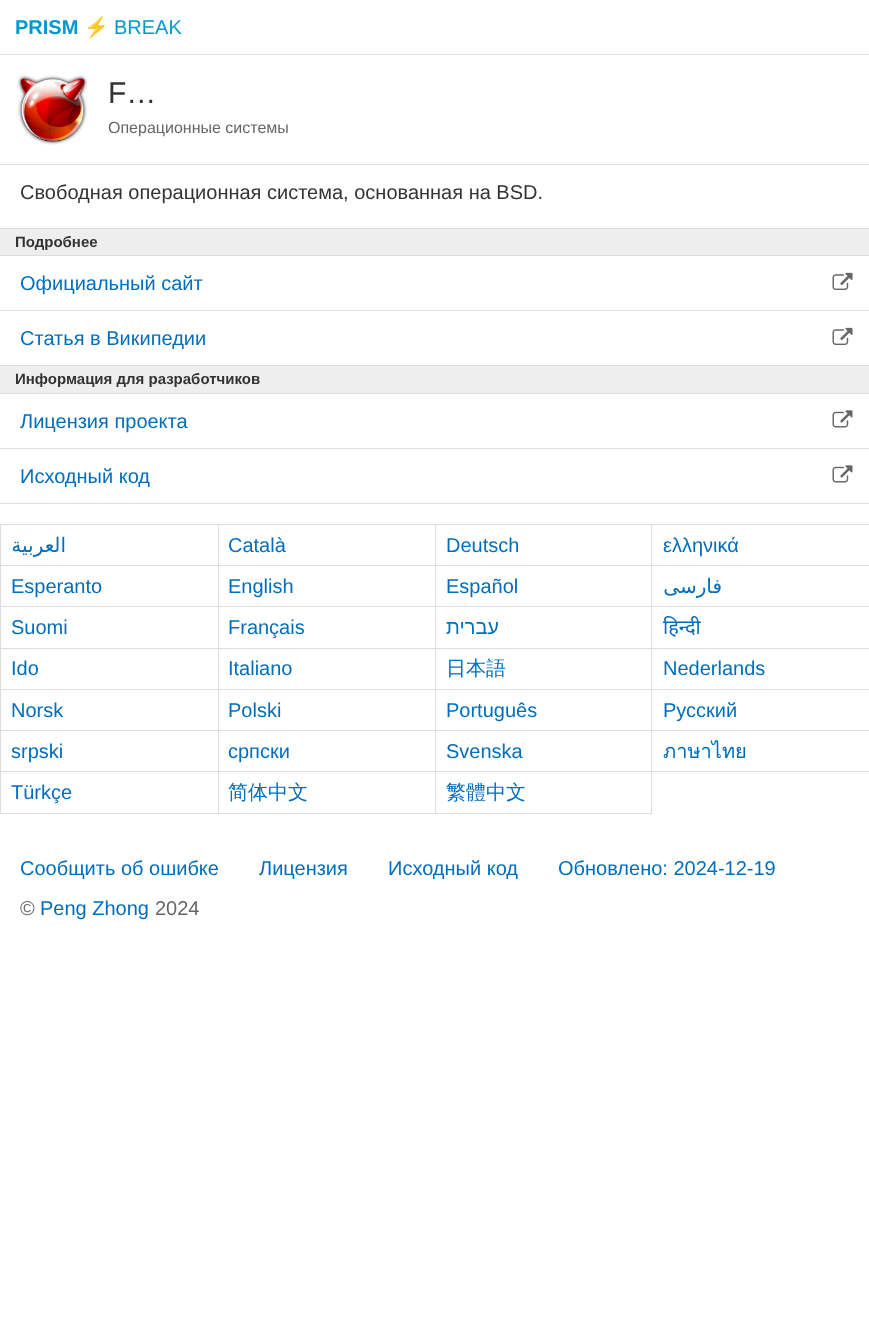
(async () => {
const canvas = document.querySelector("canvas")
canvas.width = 869
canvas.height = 1331
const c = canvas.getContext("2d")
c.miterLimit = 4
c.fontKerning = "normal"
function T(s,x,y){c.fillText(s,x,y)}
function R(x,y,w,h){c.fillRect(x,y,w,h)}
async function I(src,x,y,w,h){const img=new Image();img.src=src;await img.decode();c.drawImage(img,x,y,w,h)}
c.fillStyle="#fff"
R(0,0,869,1331)
c.fillStyle="#ddd"
R(0,54,869,1)
c.font="bold 20px Liberation Sans"
c.fillStyle="#09c"
T("PRISM",15,34)
c.font="20px Noto Color Emoji"
T("⚡",84,34)
c.font="20px Liberation Sans"
T("BREAK",114,34)
c.fillStyle="#ddd"
R(0,164,869,1)
await I("1.png",17,75,71,70)
c.font="30px Liberation Sans"
c.fillStyle="#333"
T("F…",108,103)
c.font="16px Liberation Sans"
c.fillStyle="#666"
T("Операционные системы",108,133)
c.fillStyle="#ddd"
R(0,228,869,1)
c.font="20px Liberation Sans"
c.fillStyle="#333"
T("Свободная операционная система, основанная на BSD.",20,199)
c.fillStyle="#eee"
R(0,229,869,26)
c.fillStyle="#ddd"
R(0,255,869,1)
c.font="bold 15px Liberation Sans"
c.fillStyle="#333"
T("Подробнее",15,247)
c.fillStyle="#ddd"
R(0,310,869,1)
c.font="20px Liberation Sans"
c.fillStyle="#006ebd"
T("Официальный сайт",20,290)
await I("2.png",832,272,21,18)
c.fillStyle="#ddd"
R(0,365,869,1)
c.fillStyle="#006ebd"
T("Статья в Википедии",20,345)
await I("2.png",832,327,21,18)
c.fillStyle="#eee"
R(0,366,869,27)
c.fillStyle="#ddd"
R(0,393,869,1)
c.font="bold 15px Liberation Sans"
c.fillStyle="#333"
T("Информация для разработчиков",15,384)
c.fillStyle="#ddd"
R(0,448,869,1)
c.font="20px Liberation Sans"
c.fillStyle="#006ebd"
T("Лицензия проекта",20,428)
await I("3.png",832,410,21,18)
c.fillStyle="#ddd"
R(0,503,869,1)
c.fillStyle="#006ebd"
T("Исходный код",20,483)
await I("3.png",832,465,21,18)
c.fillStyle="#ddd"
R(0,524,869,1)
R(0,524,1,290)
R(218,525,1,289)
R(1,565,218,1)
c.direction="rtl"
c.font="20px DejaVu Sans"
c.fillStyle="#006ebd"
T("العربية",66,552)
c.fillStyle="#ddd"
R(435,525,1,289)
R(219,565,217,1)
c.direction="ltr"
c.font="20px Liberation Sans"
c.fillStyle="#006ebd"
T("Català",228,552)
c.fillStyle="#ddd"
R(651,525,1,289)
R(436,565,433,1)
c.fillStyle="#006ebd"
T("Deutsch",446,552)
T("ελληνικά",663,552)
c.fillStyle="#ddd"
R(1,606,868,1)
c.fillStyle="#006ebd"
T("Esperanto",11,593)
T("English",228,593)
T("Español",446,593)
c.direction="rtl"
c.font="20px DejaVu Sans"
T("فارسی",722,593)
c.fillStyle="#ddd"
R(1,648,868,1)
c.direction="ltr"
c.font="20px Liberation Sans"
c.fillStyle="#006ebd"
T("Suomi",11,634)
T("Français",228,634)
c.direction="rtl"
T("עברית",499,634)
c.direction="ltr"
c.font="20px Noto Sans"
T("हिन्दी",663,634)
c.fillStyle="#ddd"
R(1,689,868,1)
c.font="20px Liberation Sans"
c.fillStyle="#006ebd"
T("Ido",11,675)
T("Italiano",228,675)
c.font="500 20px WenQuanYi Zen Hei"
T("日本語",446,675)
c.font="20px Liberation Sans"
T("Nederlands",663,675)
c.fillStyle="#ddd"
R(1,730,868,1)
c.fillStyle="#006ebd"
T("Norsk",11,717)
T("Polski",228,717)
T("Português",446,717)
T("Русский",663,717)
c.fillStyle="#ddd"
R(1,771,868,1)
c.fillStyle="#006ebd"
T("srpski",11,758)
T("српски",228,758)
T("Svenska",446,758)
c.font="20px Loma"
T("ภาษาไทย",663,758)
c.fillStyle="#ddd"
R(1,813,652,1)
c.font="20px Liberation Sans"
c.fillStyle="#006ebd"
T("Türkçe",11,799)
c.font="500 20px WenQuanYi Zen Hei"
T("简体中文",228,799)
T("繁體中文",446,799)
c.font="20px Liberation Sans"
T("Сообщить об ошибке",20,875)
T("Лицензия",259,875)
T("Исходный код",388,875)
T("Обновлено: 2024-12-19",558,875)
c.fillStyle="#666"
T("©",20,915)
c.fillStyle="#006ebd"
T("Peng Zhong",40,915)
c.fillStyle="#666"
T("2024",155,915)
})()
